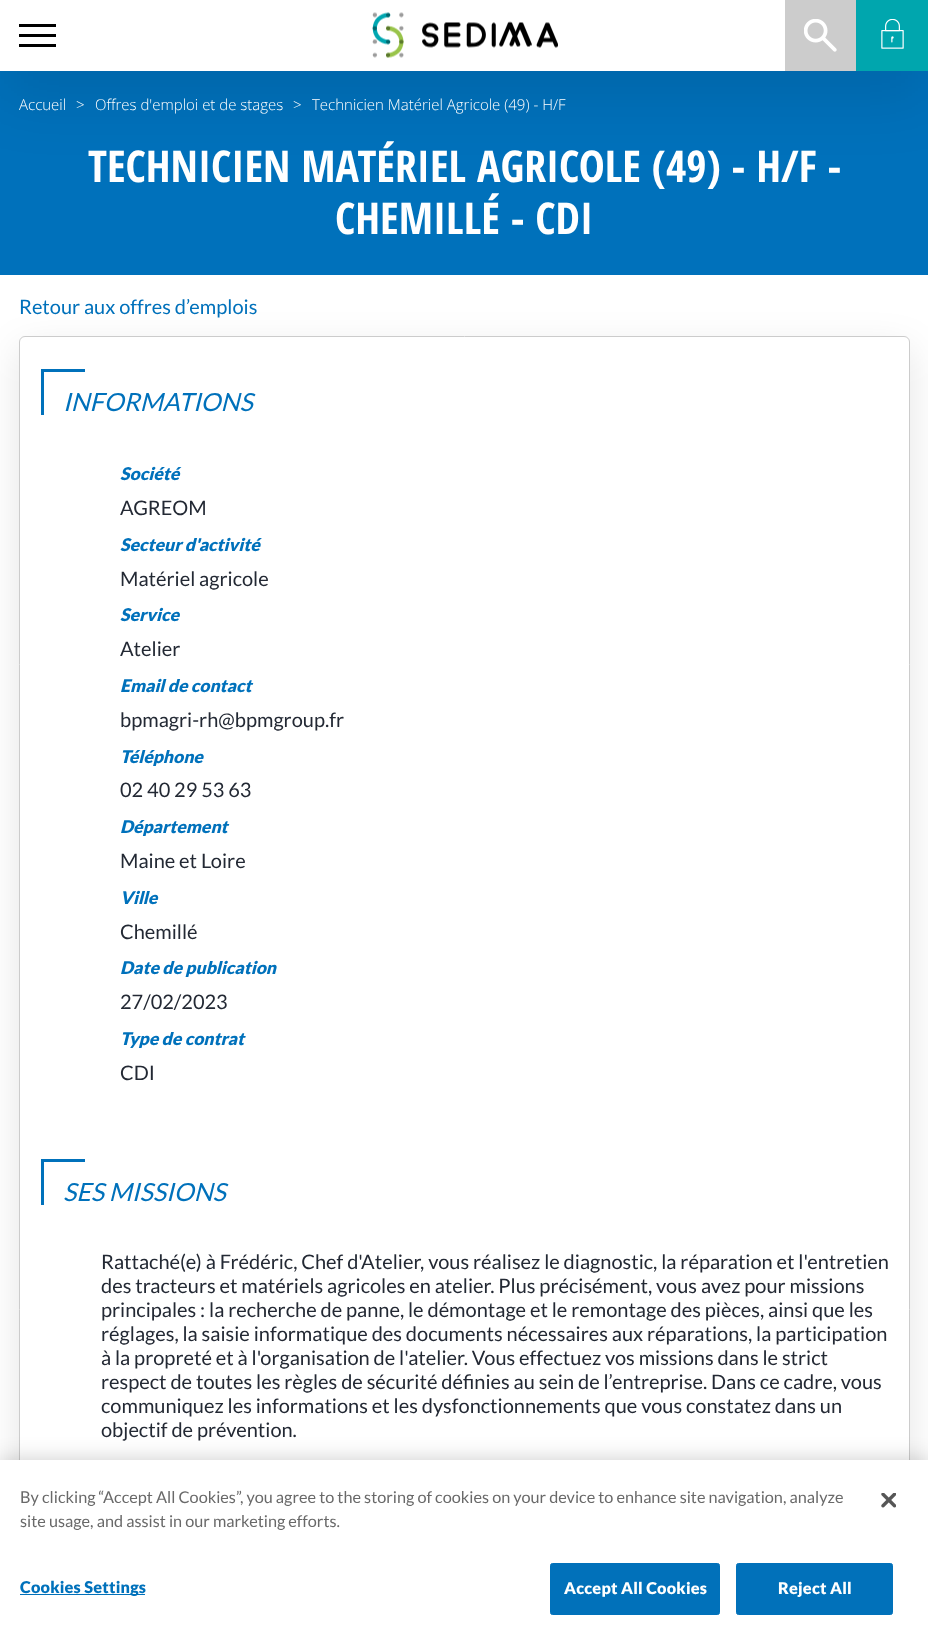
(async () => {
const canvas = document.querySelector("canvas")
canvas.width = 928
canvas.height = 1631
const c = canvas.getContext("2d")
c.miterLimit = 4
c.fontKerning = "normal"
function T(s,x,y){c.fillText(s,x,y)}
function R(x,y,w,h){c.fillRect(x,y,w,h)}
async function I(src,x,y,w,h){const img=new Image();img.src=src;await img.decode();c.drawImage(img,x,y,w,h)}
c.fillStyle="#fff"
R(0,0,928,1631)
c.fillStyle="#0071bb"
R(0,71,928,204)
c.fillStyle="#0000001a"
c.filter="blur(31px)"
c.beginPath()
c.rect(0,25,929,71)
c.fill()
c.filter="none"
c.fillStyle="#fff"
R(0,0,785,71)
c.fillStyle="#000"
R(19,24,37,3)
R(19,34,37,3)
R(19,44,37,3)
await I("1.png",372,12,186,46)
c.fillStyle="#ccc"
R(785,0,71,71)
await I("2.png",804,19,33,33)
c.fillStyle="#00a6ae"
R(856,0,72,71)
await I("3.png",881,19,23,30)
c.font="300 15px Open Sans"
c.fillStyle="#fff"
T("Accueil",19,110)
T(">",76,110)
T("Offres d'emploi et de stages",95,110)
T(">",293,110)
T("Technicien Matériel Agricole (49) - H/F",312,110)
c.font="bold 43.75px Open Sans Condensed"
T("TECHNICIEN MATÉRIEL AGRICOLE (49) - H/F -",88,182)
T("CHEMILLÉ - CDI",335,234)
c.font="20px Lato"
c.fillStyle="#0071bb"
T("Retour aux offres d’emplois",19,314)
c.fillStyle="#0000001a"
c.filter="blur(19px)"
c.beginPath()
c.roundRect(19,349,891,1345,6)
c.fill()
c.filter="none"
c.fillStyle="#fff"
c.beginPath()
c.roundRect(19.5,336.5,890,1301,5.5)
c.fill()
c.strokeStyle="#ccc"
c.stroke()
c.fillStyle="#0071bb"
R(41,371,3,44)
R(41,369,44,3)
c.font="italic 25px Lato"
T("INFORMATIONS",63,411)
c.font="italic 900 17.5px Lato"
T("Société",120,480)
c.font="20px Lato"
c.fillStyle="#232934"
T("AGREOM",120,515)
c.font="italic 900 17.5px Lato"
c.fillStyle="#0071bb"
T("Secteur d'activité",120,551)
c.font="20px Lato"
c.fillStyle="#232934"
T("Matériel agricole",120,586)
c.font="italic 900 17.5px Lato"
c.fillStyle="#0071bb"
T("Service",120,621)
c.font="20px Lato"
c.fillStyle="#232934"
T("Atelier",120,656)
c.font="italic 900 17.5px Lato"
c.fillStyle="#0071bb"
T("Email de contact",120,692)
c.font="20px Lato"
c.fillStyle="#232934"
T("bpmagri-rh@bpmgroup.fr",120,727)
c.font="italic 900 17.5px Lato"
c.fillStyle="#0071bb"
T("Téléphone",120,763)
c.font="20px Lato"
c.fillStyle="#232934"
T("02 40 29 53 63",120,797)
c.font="italic 900 17.5px Lato"
c.fillStyle="#0071bb"
T("Département",120,833)
c.font="20px Lato"
c.fillStyle="#232934"
T("Maine et Loire",120,868)
c.font="italic 900 17.5px Lato"
c.fillStyle="#0071bb"
T("Ville",120,904)
c.font="20px Lato"
c.fillStyle="#232934"
T("Chemillé",120,939)
c.font="italic 900 17.5px Lato"
c.fillStyle="#0071bb"
T("Date de publication",120,974)
c.font="20px Lato"
c.fillStyle="#232934"
T("27/02/2023",120,1009)
c.font="italic 900 17.5px Lato"
c.fillStyle="#0071bb"
T("Type de contrat",120,1045)
c.font="20px Lato"
c.fillStyle="#232934"
T("CDI",120,1080)
c.fillStyle="#0071bb"
R(41,1161,3,44)
R(41,1159,44,3)
c.font="italic 25px Lato"
T("SES MISSIONS",63,1201)
c.font="20px Lato"
c.fillStyle="#232934"
T("Rattaché(e) à Frédéric, Chef d'Atelier, vous réalisez le diagnostic, la réparation et l'entretien",101,1269)
T("des tracteurs et matériels agricoles en atelier. Plus précisément, vous avez pour missions",101,1293)
T("principales : la recherche de panne, le démontage et le remontage des pièces, ainsi que les",101,1317)
T("réglages, la saisie informatique des documents nécessaires aux réparations, la participation",101,1341)
T("à la propreté et à l'organisation de l'atelier. Vous effectuez vos missions dans le strict",101,1365)
T("respect de toutes les règles de sécurité définies au sein de l’entreprise. Dans ce cadre, vous",101,1389)
T("communiquez les informations et les dysfonctionnements que vous constatez dans un",101,1413)
T("objectif de prévention.",101,1437)
c.fillStyle="#00000033"
c.filter="blur(11px)"
c.beginPath()
c.rect(0,1460,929,171)
c.fill()
c.filter="none"
c.fillStyle="#fff"
R(0,1460,928,171)
c.font="16.25px Lato"
c.fillStyle="#696969"
T("By clicking “Accept All Cookies”, you agree to the storing of cookies on your device to enhance site navigation, analyze",20,1503)
T("site usage, and assist in our marketing efforts.",20,1527)
c.fillStyle="#0171ba"
R(20,1594,125,1)
c.letterSpacing="0.2px"
c.font="900 16.25px Lato"
c.fillStyle="#0071bb"
T("Cookies Settings",20,1593)
c.fillStyle="#0171ba"
c.beginPath()
c.roundRect(550.5,1563.5,169,51,2)
c.fill()
c.strokeStyle="#0171ba"
c.stroke()
c.fillStyle="#fff"
T("Accept All Cookies",564,1594)
c.fillStyle="#0171ba"
c.beginPath()
c.roundRect(736.5,1563.5,156,51,2)
c.fill()
c.stroke()
c.fillStyle="#fff"
T("Reject All",778,1594)
await I("4.png",881,1493,15,15)
})()
